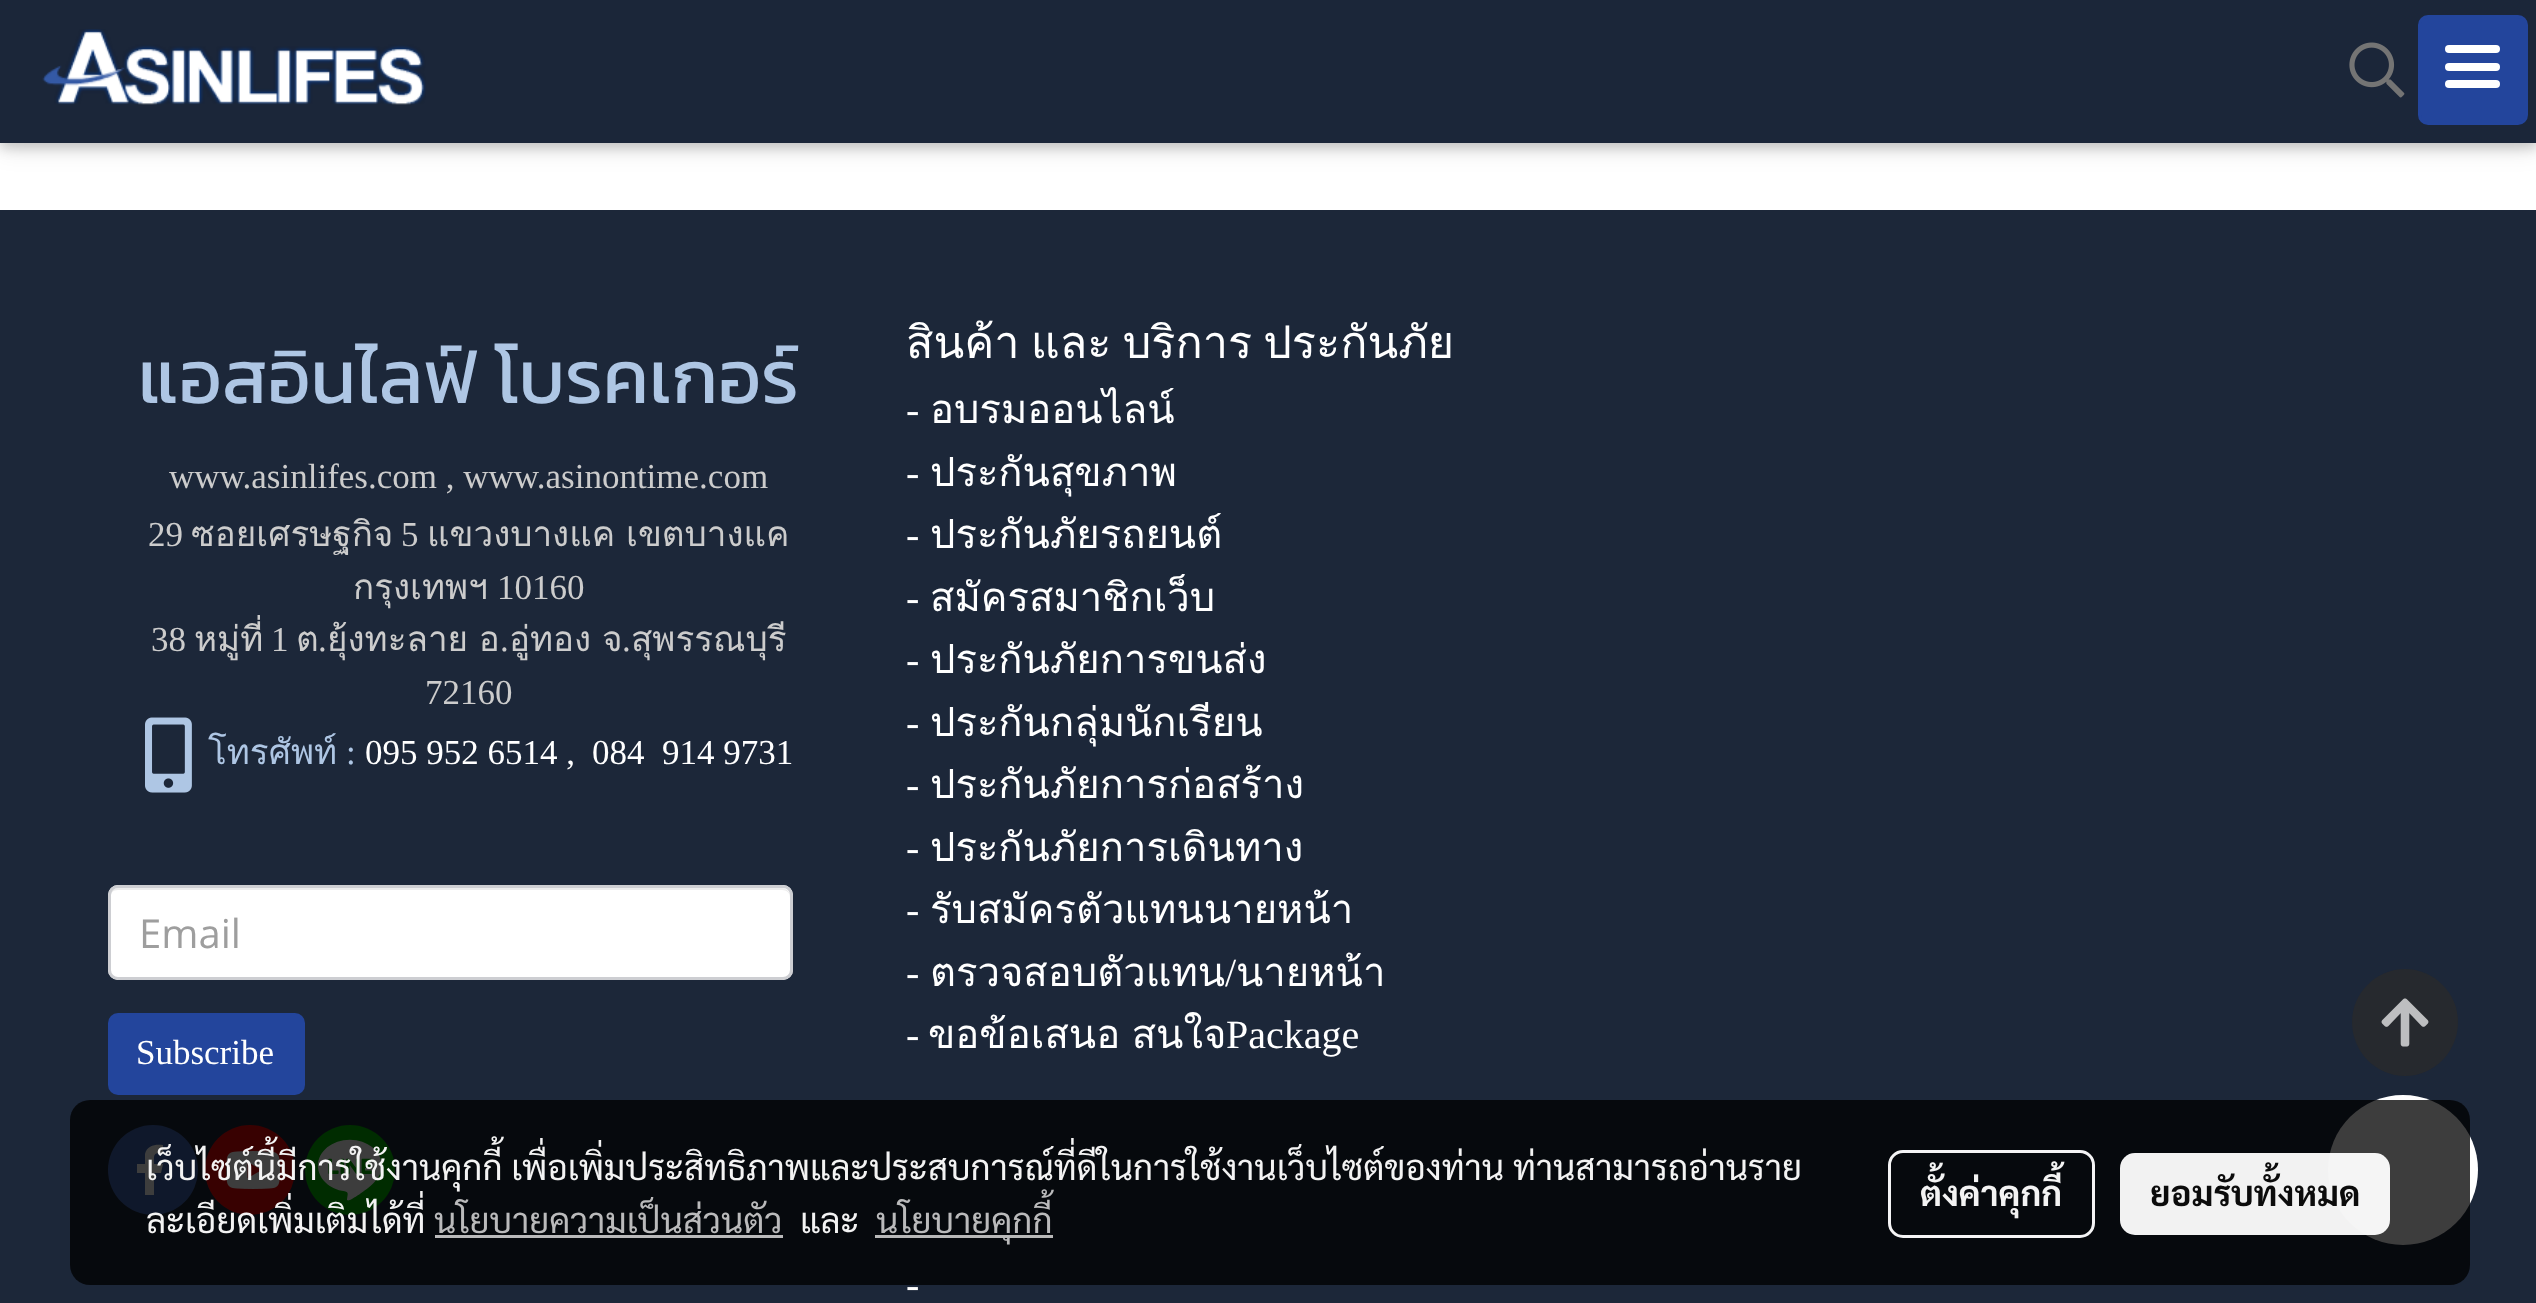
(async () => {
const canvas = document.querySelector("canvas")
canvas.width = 2536
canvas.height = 1303
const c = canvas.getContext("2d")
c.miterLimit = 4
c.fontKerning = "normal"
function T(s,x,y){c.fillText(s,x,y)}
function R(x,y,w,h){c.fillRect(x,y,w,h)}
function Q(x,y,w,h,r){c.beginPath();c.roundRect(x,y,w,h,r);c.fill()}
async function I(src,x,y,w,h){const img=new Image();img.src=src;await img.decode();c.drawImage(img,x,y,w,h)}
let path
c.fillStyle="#fff"
R(0,0,2536,1303)
c.fillStyle="#0000001f"
c.filter="blur(12.5px)"
c.beginPath()
c.rect(0,5,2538,143)
c.fill()
c.filter="none"
c.fillStyle="#00000029"
c.filter="blur(6px)"
c.beginPath()
c.rect(0,5,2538,143)
c.fill()
c.filter="none"
c.fillStyle="#1b2639"
R(0,0,2536,143)
await I("1.png",42,29,384,76)
await I("2.png",2349,42,56,56)
c.fillStyle="#23459c"
c.beginPath()
c.roundRect(2419.5,16.5,107,107,8.5)
c.fill()
c.strokeStyle="#23459c"
c.lineWidth=3
c.stroke()
c.fillStyle="#fff"
Q(2445,63,55,8,4)
Q(2445,45,55,8,4)
Q(2445,80,55,8,4)
c.fillStyle="#1c2739"
R(0,210,2536,1093)
c.font="75px Kanit"
c.fillStyle="#aec6e4"
T("แอสอินไลฟ์ โบรคเกอร์",138,403)
c.font="35px Liberation Serif"
c.fillStyle="#ccc"
T("www.asinlifes.com , www.asinontime.com",169,488)
T("29",148,546)
c.font="35px Loma"
T("ซอยเศรษฐกิจ",191,546)
c.font="35px Liberation Serif"
T("5",401,546)
c.wordSpacing="-1px"
c.font="35px Loma"
T("แขวงบางแค เขตบางแค",427,546)
c.wordSpacing="0px"
T("กรุงเทพฯ",353,599)
c.font="35px Liberation Serif"
T("10160",497,599)
T("38",151,651)
c.font="35px Loma"
T("หมู่ที่",194,651)
c.font="35px Liberation Serif"
T("1",271,651)
c.font="35px Loma"
T("ต",296,651)
c.font="35px Liberation Serif"
T(".",318,651)
c.wordSpacing="-1px"
c.font="35px Loma"
T("ยุ้งทะลาย อ",327,651)
c.wordSpacing="0px"
c.font="35px Liberation Serif"
T(".",500,651)
c.wordSpacing="-1px"
c.font="35px Loma"
T("อู่ทอง จ",509,651)
c.wordSpacing="0px"
c.font="35px Liberation Serif"
T(".",622,651)
c.font="35px Loma"
T("สุพรรณบุรี",631,651)
c.font="35px Liberation Serif"
T("72160",425,704)
await I("3.png",145,717,47,76)
c.font="35px Loma"
c.fillStyle="#aec6e4"
T("โทรศัพท์",208,764)
c.font="35px Liberation Serif"
T(":",346,764)
c.fillStyle="#fff"
T("095 952 6514 ,",365,764)
T("084  914 9731",592,764)
Q(108,885,685,95,10)
c.fillStyle="#ececec"
path = new Path2D("M118 890h664c5 0 8 3 8 8v-2c0-4-4-8-8-8h-664c-4 0-8 4-8 8v2c0-5 3-8 8-8z")
c.fill(path)
c.beginPath()
c.roundRect(109.5,886.5,682,92,8.5)
c.strokeStyle="#cdced2"
c.stroke()
c.font="40px Open Sans"
c.fillStyle="#9e9e9e"
T("Email",139,948)
c.fillStyle="#23459c"
Q(108,1013,197,82,10)
c.font="35px Liberation Serif"
c.fillStyle="#fff"
T("Subscribe",136,1064)
c.fillStyle="#4267b2"
c.beginPath()
c.arc(153,1170,45,0,7)
c.fill()
c.fillStyle="#fff"
path = new Path2D("M145 1195v-22h-8v-9h8v-10c2-9 11-10 18-9v8c-10 0-9 1-9 11h9l-2 9h-7v22")
c.fill(path)
c.fillStyle="#eb0808"
c.beginPath()
c.arc(250,1170,45,0,7)
c.fill()
await I("4.png",226,1151,55,38)
c.fillStyle="#00b800"
c.beginPath()
c.arc(350,1170,45,0,7)
c.fill()
await I("5.png",306,1139,88,62)
c.wordSpacing="-4px"
c.font="45px Loma"
c.fillStyle="#fff"
T("สินค้า และ บริการ ประกันภัย",906,358)
c.wordSpacing="0px"
c.font="40px Liberation Serif"
T("-",906,423)
c.font="40px Loma"
T("อบรมออนไลน์",930,423)
c.font="40px Liberation Serif"
T("-",906,486)
c.font="40px Loma"
T("ประกันสุขภาพ",930,486)
c.font="40px Liberation Serif"
T("-",906,548)
c.font="40px Loma"
T("ประกันภัยรถยนต์",930,548)
c.font="40px Liberation Serif"
T("-",906,611)
c.font="40px Loma"
T("สมัครสมาชิกเว็บ",930,611)
c.font="40px Liberation Serif"
T("-",906,673)
c.font="40px Loma"
T("ประกันภัยการขนส่ง",930,673)
c.font="40px Liberation Serif"
T("-",906,736)
c.font="40px Loma"
T("ประกันกลุ่มนักเรียน",930,736)
c.font="40px Liberation Serif"
T("-",906,798)
c.font="40px Loma"
T("ประกันภัยการก่อสร้าง",930,798)
c.font="40px Liberation Serif"
T("-",906,861)
c.font="40px Loma"
T("ประกันภัยการเดินทาง",930,861)
c.font="40px Liberation Serif"
T("-",906,923)
c.font="40px Loma"
T("รับสมัครตัวแทนนายหน้า",930,923)
c.font="40px Liberation Serif"
T("-",906,986)
c.font="40px Loma"
T("ตรวจสอบตัวแทน",930,986)
c.font="40px Liberation Serif"
T("/",1225,986)
c.font="40px Loma"
T("นายหน้า",1236,986)
c.font="40px Liberation Serif"
T("-",906,1048)
c.wordSpacing="-2px"
c.font="40px Loma"
T("ขอข้อเสนอ สนใจ",928,1048)
c.wordSpacing="0px"
c.font="40px Liberation Serif"
T("Package",1226,1048)
T("-",906,1298)
c.fillStyle="#26292e"
path = new Path2D("M2405 969c-29 0-53 24-53 53c0 30 24 54 53 54c29 0 53-24 53-54c0-29-24-53-53-53z")
c.fill(path)
await I("6.png",2381,998,48,49)
c.fillStyle="#fff"
c.beginPath()
c.arc(2403,1170,75,0,7)
c.fill()
c.fillStyle="#000000c2"
Q(70,1100,2400,185,20)
c.font="35px Sarabun"
c.fillStyle="#f3f3f3"
T("เว็บไซต์นี้มีการใช้งานคุกกี้ เพื่อเพิ่มประสิทธิภาพและประสบการณ์ที่ดีในการใช้งานเว็บไซต์ของท่าน",146,1180)
T("ท่านสามารถอ่านราย",1513,1180)
T("ละเอียดเพิ่มเติมได้ที่",146,1233)
c.fillStyle="#bababb"
T("นโยบายความเป็นส่วนตัว",434,1233)
R(435,1235,348,3)
c.fillStyle="#f3f3f3"
T("และ",800,1233)
c.fillStyle="#c2c2c2f2"
R(875,1235,178,3)
c.fillStyle="#bababb"
T("นโยบายคุกกี้",876,1233)
c.beginPath()
c.roundRect(1889.5,1151.5,204,85,13.5)
c.strokeStyle="#f4f4f5"
c.stroke()
c.font="bold 35px Sarabun"
c.fillStyle="#f3f3f3"
T("ตั้งค่าคุกกี้",1920,1206)
c.fillStyle="#fffffff2"
Q(2120,1153,270,82,15)
c.fillStyle="#0c0c0c"
T("ยอมรับทั้งหมด",2150,1206)
})()
